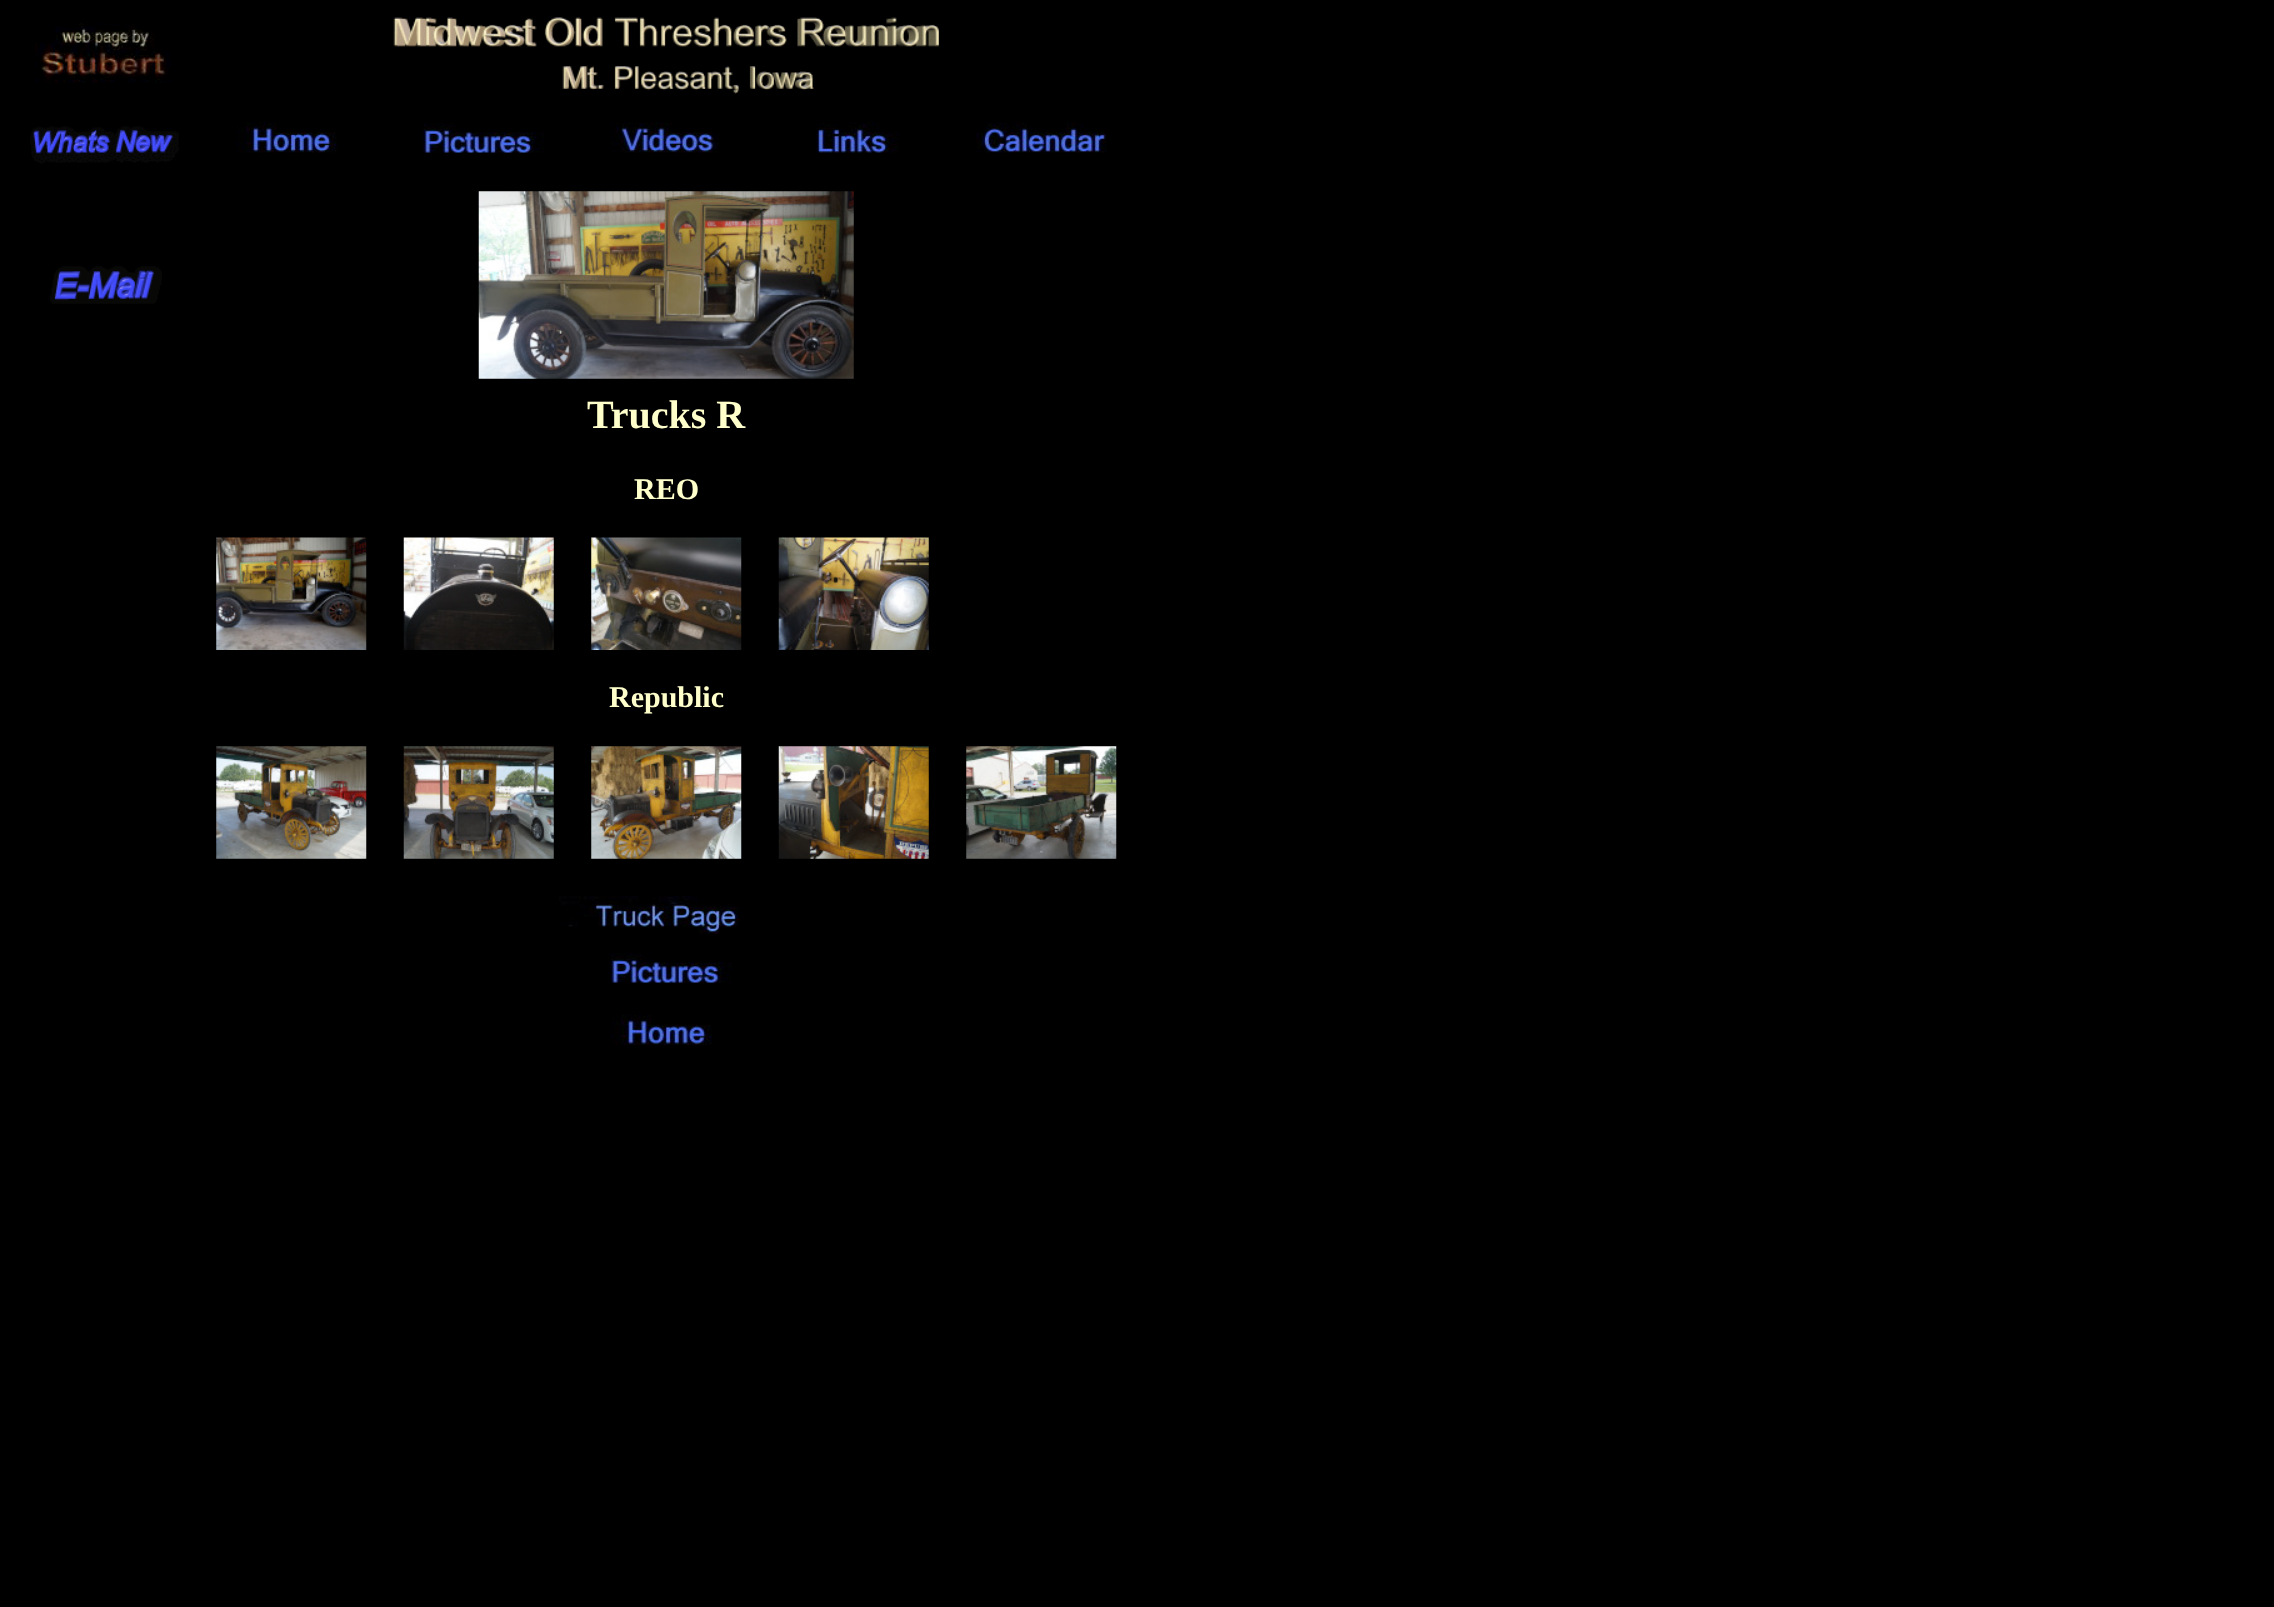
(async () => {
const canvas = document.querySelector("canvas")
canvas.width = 2274
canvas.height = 1607
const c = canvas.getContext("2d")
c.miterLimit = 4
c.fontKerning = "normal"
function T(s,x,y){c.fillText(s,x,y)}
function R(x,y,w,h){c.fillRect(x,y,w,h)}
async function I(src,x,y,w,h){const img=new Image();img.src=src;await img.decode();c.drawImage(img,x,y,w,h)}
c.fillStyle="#000"
R(0,0,2274,1607)
await I("1.png",35,23,137,60)
await I("2.png",393,17,546,77)
await I("3.png",30,126,149,38)
await I("4.png",236,122,101,31)
await I("5.png",423,123,121,30)
await I("6.png",611,122,108,31)
await I("7.png",816,122,83,31)
await I("8.png",976,122,131,31)
await I("9.png",50,266,112,38)
await I("10.png",478,191,376,188)
c.font="bold 40px Liberation Serif"
c.fillStyle="#ffc"
T("Trucks R",587,428)
c.font="bold 30px Liberation Serif"
T("REO",634,499)
await I("11.png",216,537,151,113)
await I("12.png",403,537,151,113)
await I("13.png",591,537,151,113)
await I("14.png",778,537,151,113)
T("Republic",609,707)
await I("15.png",216,746,151,113)
await I("16.png",403,746,151,113)
await I("17.png",591,746,151,113)
await I("18.png",778,746,151,113)
await I("19.png",966,746,151,113)
await I("20.png",559,896,181,38)
await I("21.png",610,953,122,30)
await I("22.png",611,1015,101,30)
})()
